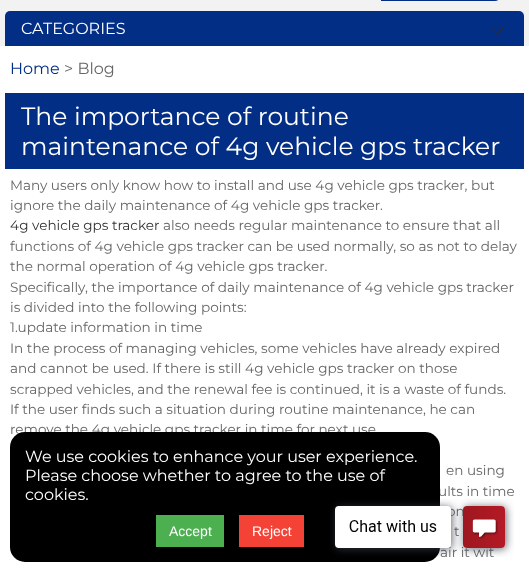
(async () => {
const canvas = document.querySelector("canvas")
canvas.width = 529
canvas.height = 572
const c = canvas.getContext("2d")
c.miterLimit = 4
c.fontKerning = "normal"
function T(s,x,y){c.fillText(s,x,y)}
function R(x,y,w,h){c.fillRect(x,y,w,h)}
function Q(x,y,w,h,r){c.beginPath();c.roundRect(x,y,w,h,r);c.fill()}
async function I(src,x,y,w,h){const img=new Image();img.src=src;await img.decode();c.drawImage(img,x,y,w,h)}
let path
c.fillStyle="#fff"
R(0,0,529,572)
c.fillStyle="#f2f2f2"
R(0,0,529,46)
c.fillStyle="#022e86"
path = new Path2D("M381-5h114c3 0 5 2 5 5v-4c0 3-2 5-5 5h-114z")
c.fill(path)
c.beginPath()
c.roundRect(5,11,519,35,[5,5,0,0])
c.fill()
await I("1.png",490,27,14,8)
c.font="16px Montserrat"
c.fillStyle="#fff"
T("CATEGORIES",21,34)
c.fillStyle="#022e86"
T("Home",10,74)
c.fillStyle="#666"
T("> Blog",64,74)
c.fillStyle="#022e86"
R(5,93,519,76)
c.font="25px Montserrat"
c.fillStyle="#fff"
T("The importance of routine",21,125)
T("maintenance of 4g vehicle gps tracker",21,155)
c.font="13.6px Montserrat"
c.fillStyle="#666"
T("Many users only know how to install and use 4g vehicle gps tracker, but",10,190)
T("ignore the daily maintenance of 4g vehicle gps tracker.",10,210)
c.fillStyle="#333"
T("4g vehicle gps tracker",10,230)
c.fillStyle="#666"
T("also needs regular maintenance to ensure that all",163,230)
T("functions of 4g vehicle gps tracker can be used normally, so as not to delay",10,251)
T("the normal operation of 4g vehicle gps tracker.",10,271)
T("Specifically, the importance of daily maintenance of 4g vehicle gps tracker",10,292)
T("is divided into the following points:",10,312)
T("1.update information in time",10,332)
T("In the process of managing vehicles, some vehicles have already expired",10,353)
T("and cannot be used. If there is still 4g vehicle gps tracker on those",10,373)
T("scrapped vehicles, and the renewal fee is continued, it is a waste of funds.",10,394)
T("If the user finds such a situation during routine maintenance, he can",10,414)
T("remove the 4g vehicle gps tracker in time for next use",10,434)
T("en using",446,475)
T("ults in time",438,496)
T("on",447,516)
T("t",454,536)
T("air it wit",440,557)
c.fillStyle="#000"
Q(10,432,430,130,15)
c.font="16px Montserrat"
c.fillStyle="#fff"
T("We use cookies to enhance your user experience.",25,462)
T("Please choose whether to agree to the use of",25,481)
T("cookies.",25,500)
c.fillStyle="#4caf50"
R(156,515,68,32)
c.font="14px Liberation Sans"
c.fillStyle="#fff"
T("Accept",169,536)
c.fillStyle="#f44336"
R(239,515,65,32)
c.fillStyle="#fff"
T("Reject",252,536)
await I("2.png",330,499,184,58)
})()
